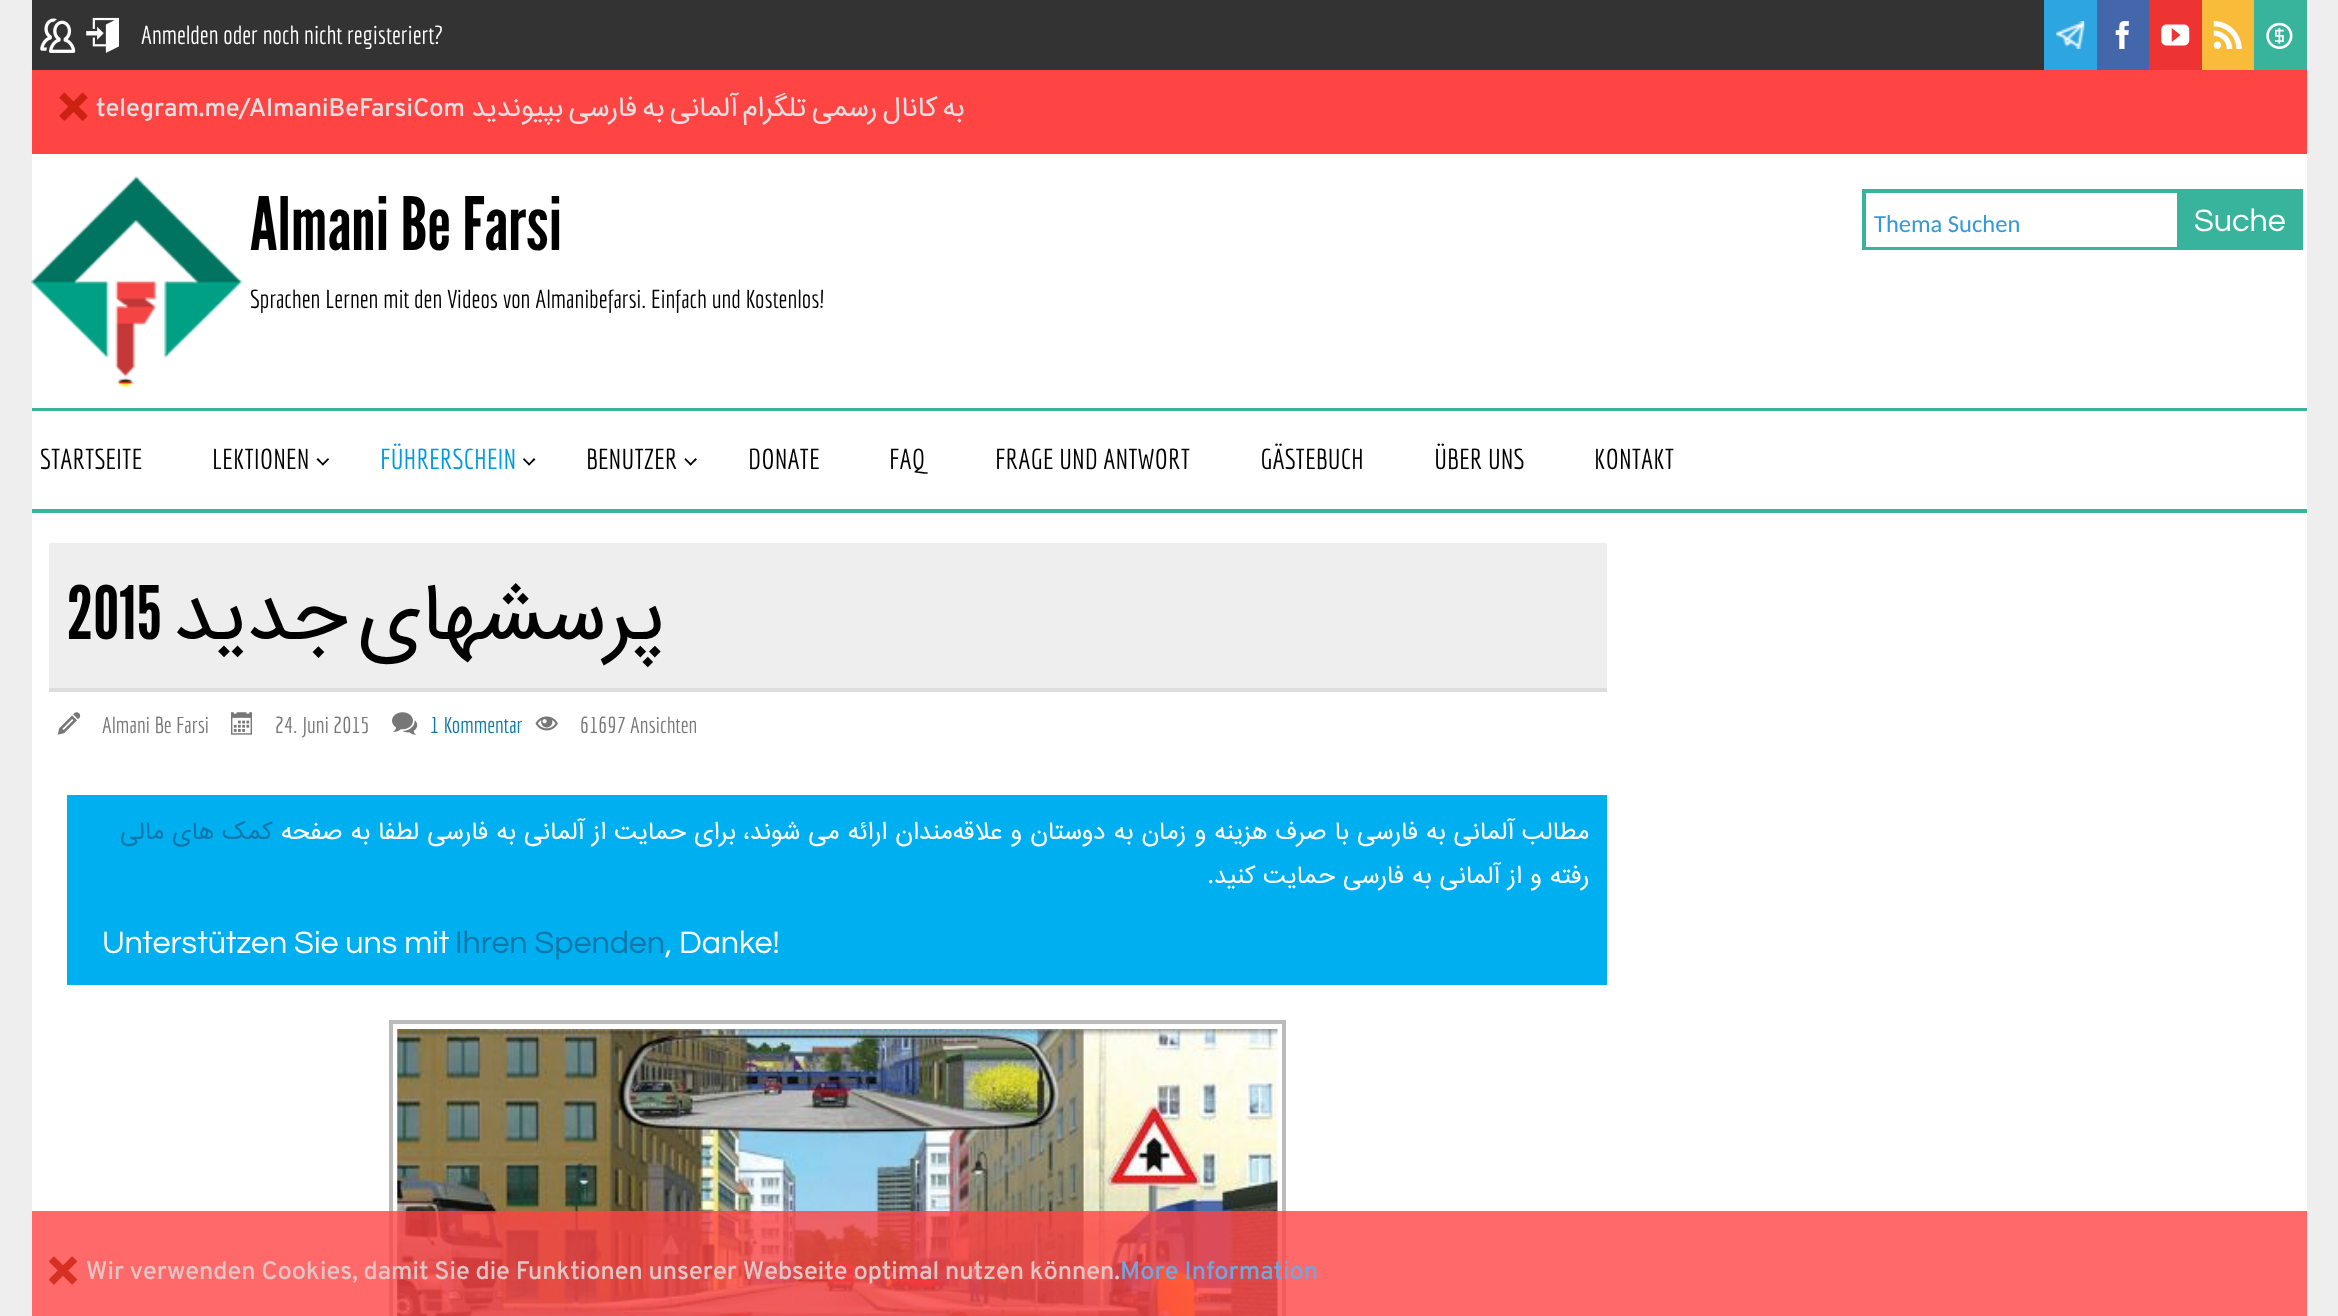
(async () => {
const canvas = document.querySelector("canvas")
canvas.width = 2338
canvas.height = 1316
const c = canvas.getContext("2d")
c.miterLimit = 4
c.fontKerning = "normal"
function T(s,x,y){c.fillText(s,x,y)}
function R(x,y,w,h){c.fillRect(x,y,w,h)}
async function I(src,x,y,w,h){const img=new Image();img.src=src;await img.decode();c.drawImage(img,x,y,w,h)}
let path
c.fillStyle="#eee"
R(0,0,2338,1316)
c.fillStyle="#fff"
R(32,154,2275,1162)
c.fillStyle="#333"
R(32,0,2012,70)
await I("1.png",40,18,36,35)
await I("2.png",86,17,33,36)
c.font="25.2px Economica"
c.fillStyle="#fff"
T("Anmelden oder noch nicht registeriert?",141,44)
c.fillStyle="#2ca5e0"
R(2044,0,53,70)
await I("3.png",2056,21,29,28)
c.fillStyle="#46a"
R(2097,0,52,70)
await I("4.png",2115,21,14,28)
c.fillStyle="#e33"
R(2149,0,53,70)
await I("5.png",2161,24,29,22)
c.fillStyle="#f8bc3a"
R(2202,0,52,70)
await I("6.png",2213,21,29,28)
c.fillStyle="#38b49d"
R(2254,0,53,70)
await I("7.png",2266,22,27,27)
c.fillStyle="#f44"
R(32,70,2275,84)
await I("8.png",59,92,29,29)
c.font="25.2px Overpass"
c.fillStyle="#e0e0e0"
T("telegram.me/AlmaniBeFarsiCom",96,116)
c.wordSpacing="-3.75px"
c.direction="rtl"
c.font="25.2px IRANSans"
T("به کانال رسمی‌ تلگرام آلمانی‌ به فارسی بپیوندید",964,116)
await I("9.png",31,176,211,211)
c.wordSpacing="0px"
c.direction="ltr"
c.font="73.5px League Gothic"
c.fillStyle="#000"
T("Almani Be Farsi",250,250)
c.font="25.2px Economica"
T("Sprachen Lernen mit den Videos von Almanibefarsi. Einfach und Kostenlos!",250,308)
c.fillStyle="#38b49d"
R(1862,189,315,4)
R(1862,247,315,3)
R(1862,189,4,61)
c.font="24.5px Carlito"
c.fillStyle="#3498db"
T("Thema Suchen",1874,232)
c.fillStyle="#38b49d"
R(2177,189,126,61)
c.font="32.25px Questrial"
c.fillStyle="#fff"
T("Suche",2194,231)
c.fillStyle="#38b49d"
R(32,408,2275,3)
R(32,509,2275,4)
c.font="28px Economica"
c.fillStyle="#000"
T("STARTSEITE",40,469)
T("LEKTIONEN",212,469)
path = new Path2D("M328 458l1 1.5l-6 6l-1.5-1z")
c.fill(path)
path = new Path2D("M318 458l6 6.5l-1 1l-6.5-6z")
c.fill(path)
c.fillStyle="#009ae1"
T("FÜHRERSCHEIN",380,469)
c.fillStyle="#000"
path = new Path2D("M534 458l1.5 1.5l-6.5 6l-1-1z")
c.fill(path)
path = new Path2D("M524 458l6.5 6.5l-1.5 1l-6-6z")
c.fill(path)
T("BENUTZER",586,469)
path = new Path2D("M695.5 458l1.5 1.5l-6.5 6l-1-1z")
c.fill(path)
path = new Path2D("M685.5 458l6.5 6.5l-1.5 1l-6-6z")
c.fill(path)
T("DONATE",748,469)
T("FAQ",889,469)
T("FRAGE UND ANTWORT",995,469)
T("GÄSTEBUCH",1260,469)
T("ÜBER UNS",1434,469)
T("KONTAKT",1594,469)
c.strokeStyle="#bbb"
c.lineWidth=4
c.strokeRect(391,1022,893,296)
await I("15.png",397,1029,881,287)
c.fillStyle="#ff4444cc"
R(32,1211,2275,105)
await I("10.png",49,1256,28,29)
c.font="25.2px Overpass"
c.fillStyle="#e2c4c4"
T("Wir verwenden Cookies, damit Sie die Funktionen unserer Webseite optimal nutzen können.",86,1279)
c.fillStyle="#72a6dd"
T("More Information",1120,1279)
c.fillStyle="#eee"
R(49,543,1558,145)
c.fillStyle="#ddd"
R(49,688,1558,4)
c.font="73.5px League Gothic"
c.fillStyle="#000"
T("2015",67,639)
c.wordSpacing="-16px"
c.direction="rtl"
c.font="73.5px IRANSans"
T("پرسشهای جدید",665,639)
await I("11.png",57,712,24,23)
c.wordSpacing="0px"
c.direction="ltr"
c.font="22.4px Economica"
c.fillStyle="#777"
T("Almani Be Farsi",102,733)
await I("12.png",231,712,21,23)
T("24. Juni 2015",275,733)
await I("13.png",392,712,26,23)
c.fillStyle="#17a"
T("1 Kommentar",430,733)
await I("14.png",535,716,23,15)
c.fillStyle="#777"
T("61697 Ansichten",580,733)
c.fillStyle="#00aff0"
R(67,795,1540,190)
c.direction="rtl"
c.font="22.4px IRANSans"
c.fillStyle="#17a"
T("کمک های مالی",272,839)
c.fillStyle="#fff"
T("مطالب آلمانی به فارسی با صرف هزینه و زمان به دوستان و علاقه‌مندان ارائه می شوند، برای حمایت از آلمانی به فارسی لطفا به صفحه",1589,839)
T("رفته و از آلمانی به فارسی حمایت کنید.",1589,883)
c.direction="ltr"
c.font="32.25px Questrial"
T("Unterstützen Sie uns mit",102,953)
c.fillStyle="#17a"
T("Ihren Spenden",455,953)
c.fillStyle="#fff"
T(", Danke!",665,953)
})()
